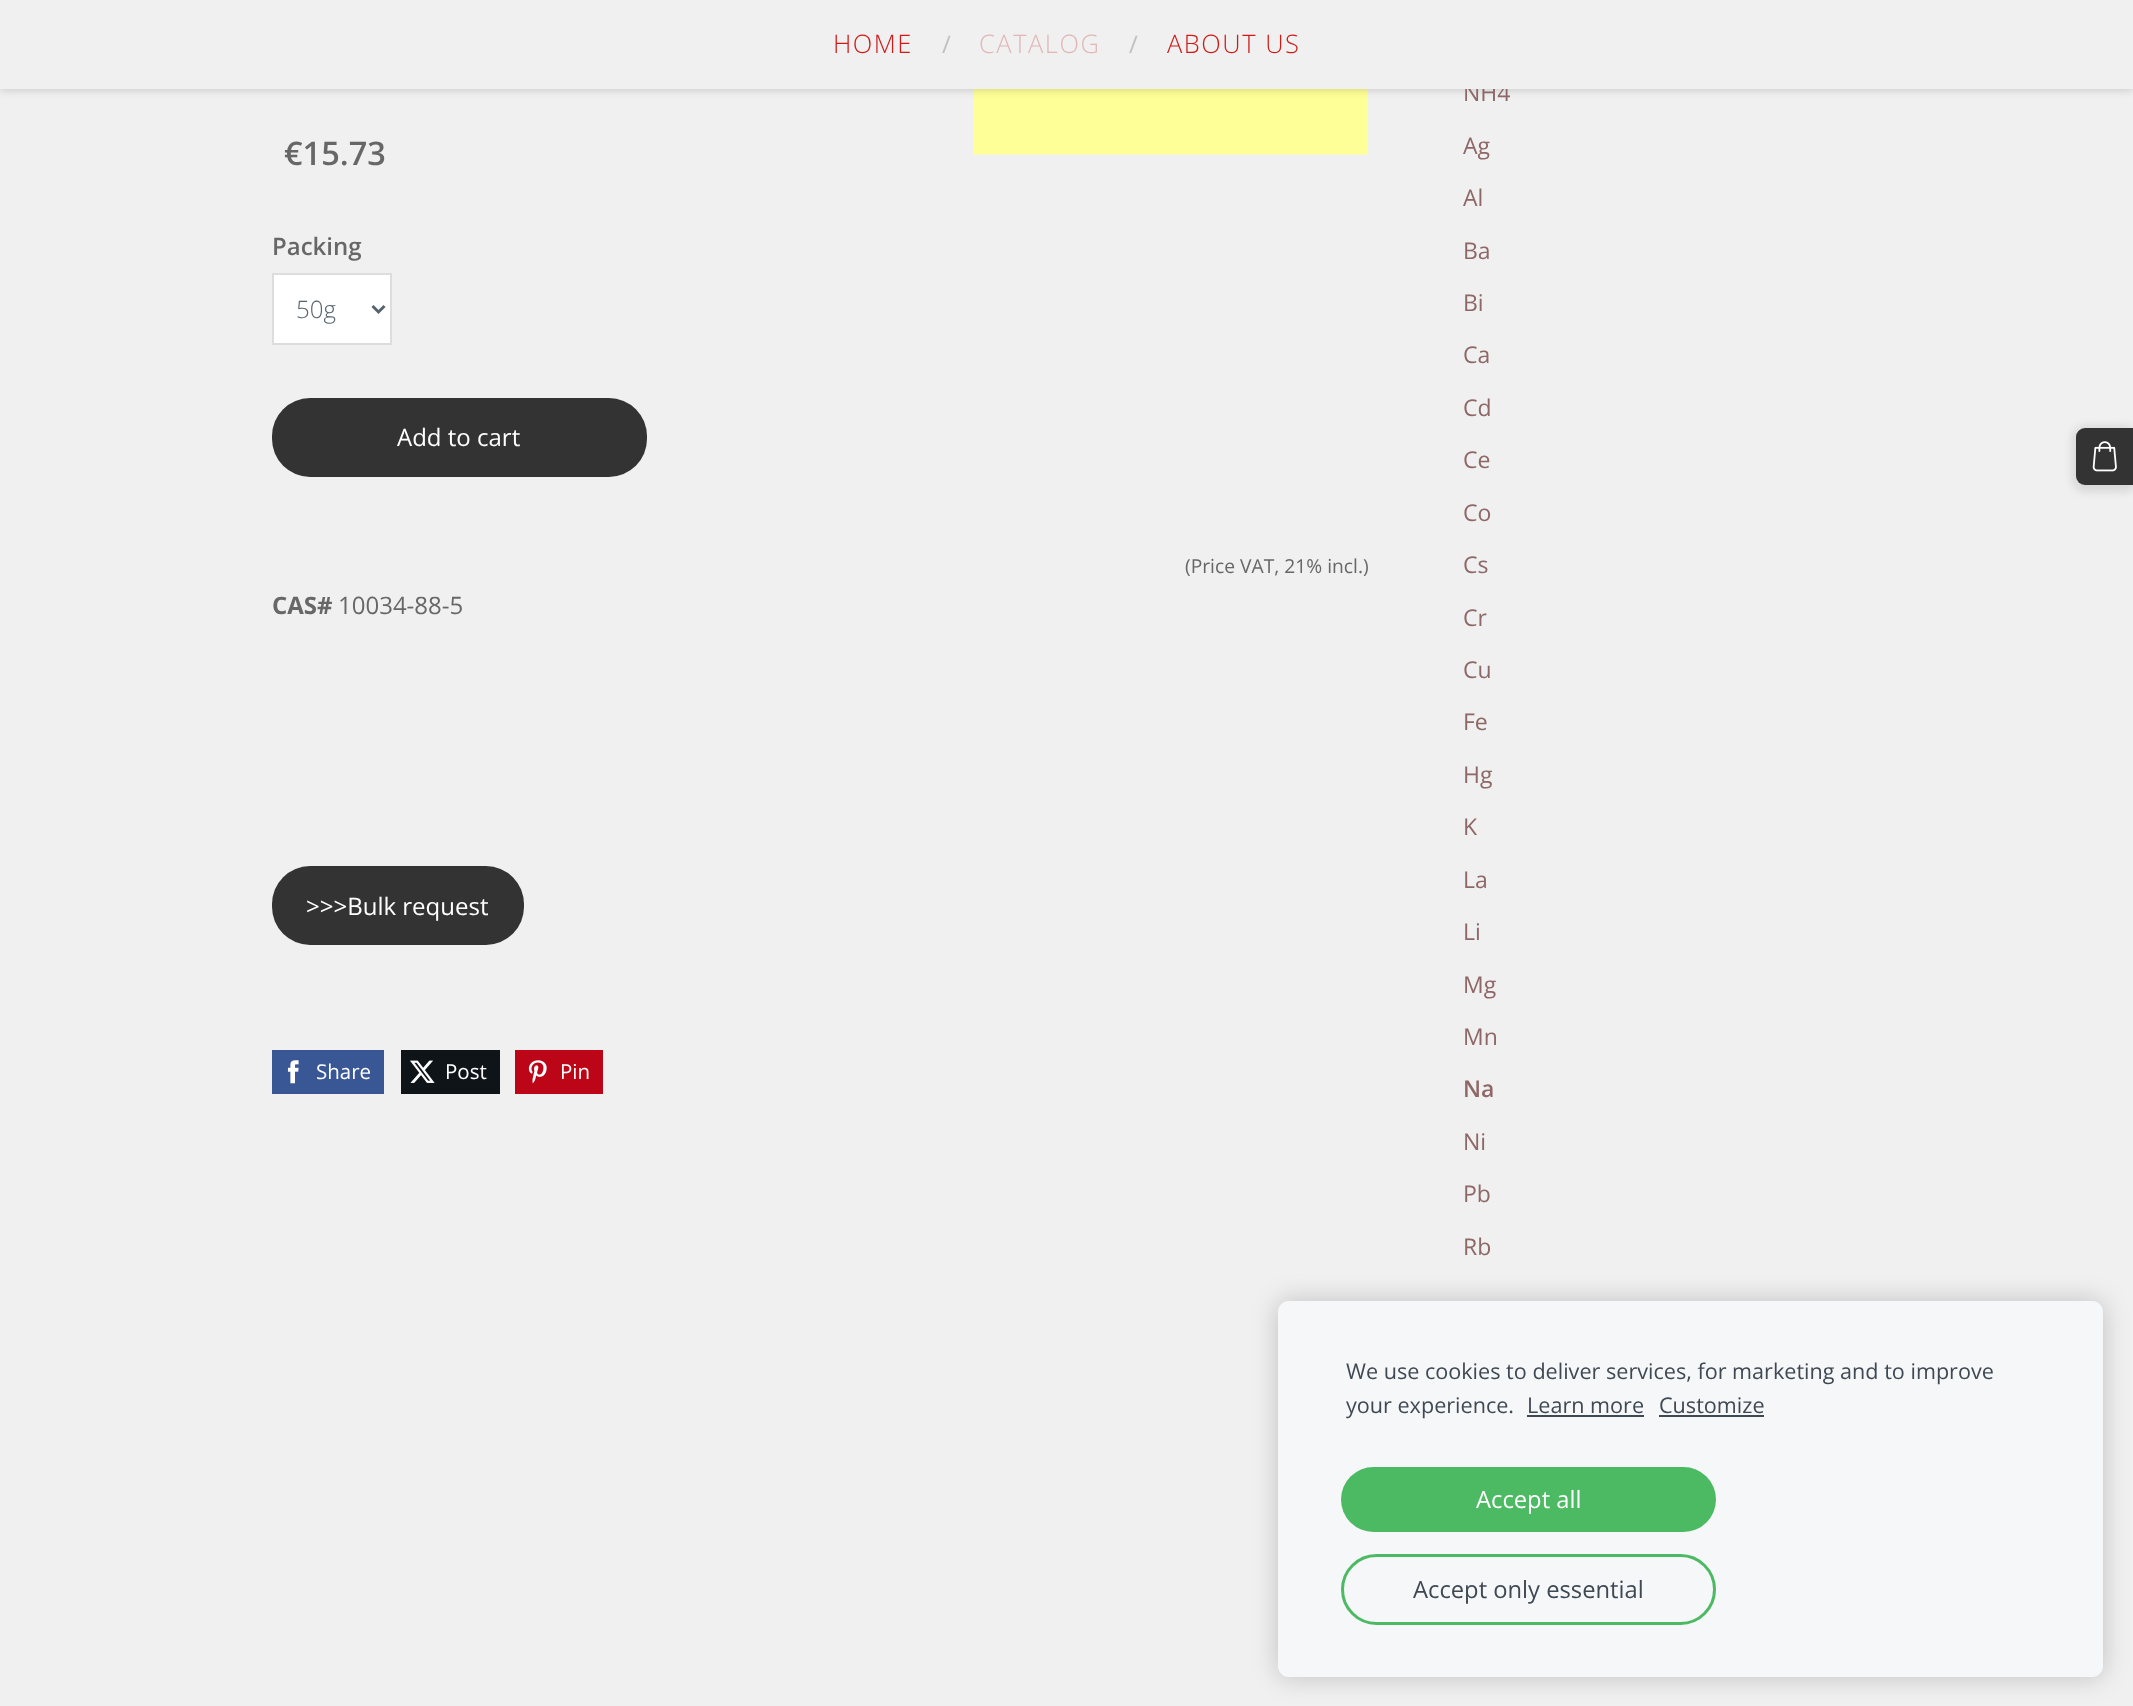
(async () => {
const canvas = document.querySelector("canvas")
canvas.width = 2133
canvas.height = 1706
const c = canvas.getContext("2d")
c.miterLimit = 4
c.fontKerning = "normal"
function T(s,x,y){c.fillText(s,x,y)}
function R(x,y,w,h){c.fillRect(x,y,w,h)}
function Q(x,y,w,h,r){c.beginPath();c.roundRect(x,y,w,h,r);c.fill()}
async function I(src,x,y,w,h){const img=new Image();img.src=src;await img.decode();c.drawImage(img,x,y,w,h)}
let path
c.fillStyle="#f0f0f0"
R(0,0,2133,1706)
await I("1.png",973,89,395,66)
c.fillStyle="#0000002b"
c.filter="blur(4px)"
c.beginPath()
c.rect(0,2,2133,88)
c.fill()
c.filter="none"
c.font="23px Open Sans"
c.fillStyle="#8e6767"
T("NH4",1463,101)
c.fillStyle="#f0f0f0"
R(0,0,2133,89)
c.letterSpacing="1.5px"
c.font="300 25.5px Open Sans"
c.fillStyle="#ce1b19"
T("HOME",833,53)
c.letterSpacing="0px"
c.font="24px Open Sans"
c.fillStyle="#c0c0c0"
T("/",942,53)
c.letterSpacing="1.5px"
c.font="300 25.5px Open Sans"
c.fillStyle="#e0b7b7"
T("CATALOG",979,53)
c.letterSpacing="0px"
c.font="24px Open Sans"
c.fillStyle="#c0c0c0"
T("/",1129,53)
c.letterSpacing="1.5px"
c.font="300 25.5px Open Sans"
c.fillStyle="#ce1b19"
T("ABOUT US",1167,53)
c.letterSpacing="0px"
c.font="600 32.5px Open Sans"
c.fillStyle="#676767"
T("€15.73",284,165)
c.font="600 24px Open Sans"
T("Packing",272,255)
c.fillStyle="#fff"
c.beginPath()
c.rect(273,274,118,70)
c.fill()
c.strokeStyle="#ddd"
c.lineWidth=2
c.stroke()
path = new Path2D("M372.5 306l6 6l6-6")
c.strokeStyle="#56646f"
c.lineWidth=3
c.stroke(path)
c.font="300 24px Open Sans"
c.fillStyle="#56646f"
T("50g",296,318)
c.fillStyle="#333"
Q(272,398,375,79,38)
c.font="24px Open Sans"
c.fillStyle="#fff"
T("Add to cart",397,446)
c.font="19.25px Open Sans"
c.fillStyle="#676767"
T("(Price VAT, 21% incl.)",1185,573)
c.font="bold 24px Open Sans"
T("CAS#",272,614)
c.font="24px Open Sans"
T("10034-88-5",338,614)
c.fillStyle="#333"
Q(272,866,252,79,38)
c.fillStyle="#fff"
T(">>>Bulk request",306,915)
c.fillStyle="#3a5795"
R(272,1050,112,44)
await I("2.png",287,1060,12,24)
c.font="20.5px Open Sans"
c.fillStyle="#fff"
T("Share",316,1079)
c.fillStyle="#0f1419"
R(401,1050,99,44)
await I("3.png",410,1060,25,23)
c.fillStyle="#fff"
T("Post",445,1079)
c.fillStyle="#bc0618"
R(515,1050,88,44)
await I("4.png",528,1060,19,24)
c.fillStyle="#fff"
T("Pin",560,1079)
c.font="23px Open Sans"
c.fillStyle="#8e6767"
T("Ag",1463,154)
T("Al",1463,206)
T("Ba",1463,259)
T("Bi",1463,311)
T("Ca",1463,363)
T("Cd",1463,416)
T("Ce",1463,468)
T("Co",1463,521)
T("Cs",1463,573)
T("Cr",1463,626)
T("Cu",1463,678)
T("Fe",1463,730)
T("Hg",1463,783)
T("K",1463,835)
T("La",1463,888)
T("Li",1463,940)
T("Mg",1463,993)
T("Mn",1463,1045)
c.font="600 23px Open Sans"
T("Na",1463,1097)
c.font="23px Open Sans"
T("Ni",1463,1150)
T("Pb",1463,1202)
T("Rb",1463,1255)
c.fillStyle="#0000001a"
c.filter="blur(4px)"
c.beginPath()
c.roundRect(2072,426,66,66,14)
c.fill()
c.filter="none"
c.fillStyle="#333"
c.beginPath()
c.roundRect(2076,428,57,57,[9,0,0,9])
c.fill()
await I("5.png",2092,441,25,31)
c.fillStyle="#00000033"
c.filter="blur(13px)"
c.beginPath()
c.roundRect(1278,1301,825,376,11)
c.fill()
c.filter="none"
c.fillStyle="#f6f7f9"
Q(1278,1301,825,376,11)
c.font="21.6px Open Sans"
c.fillStyle="#3f4954"
T("We use cookies to deliver services, for marketing and to improve",1346,1379)
T("your experience.",1346,1413)
T("Learn more",1527,1413)
R(1527,1415,117,2)
T("Customize",1659,1413)
R(1659,1415,105,2)
c.fillStyle="#4cb963"
Q(1341,1467,375,65,32.5)
c.font="23.75px Open Sans"
c.fillStyle="#fff"
T("Accept all",1476,1508)
c.beginPath()
c.roundRect(1342.5,1555.5,372,68,34)
c.strokeStyle="#4cb963"
c.stroke()
c.fillStyle="#3f4954"
T("Accept only essential",1413,1598)
})()
